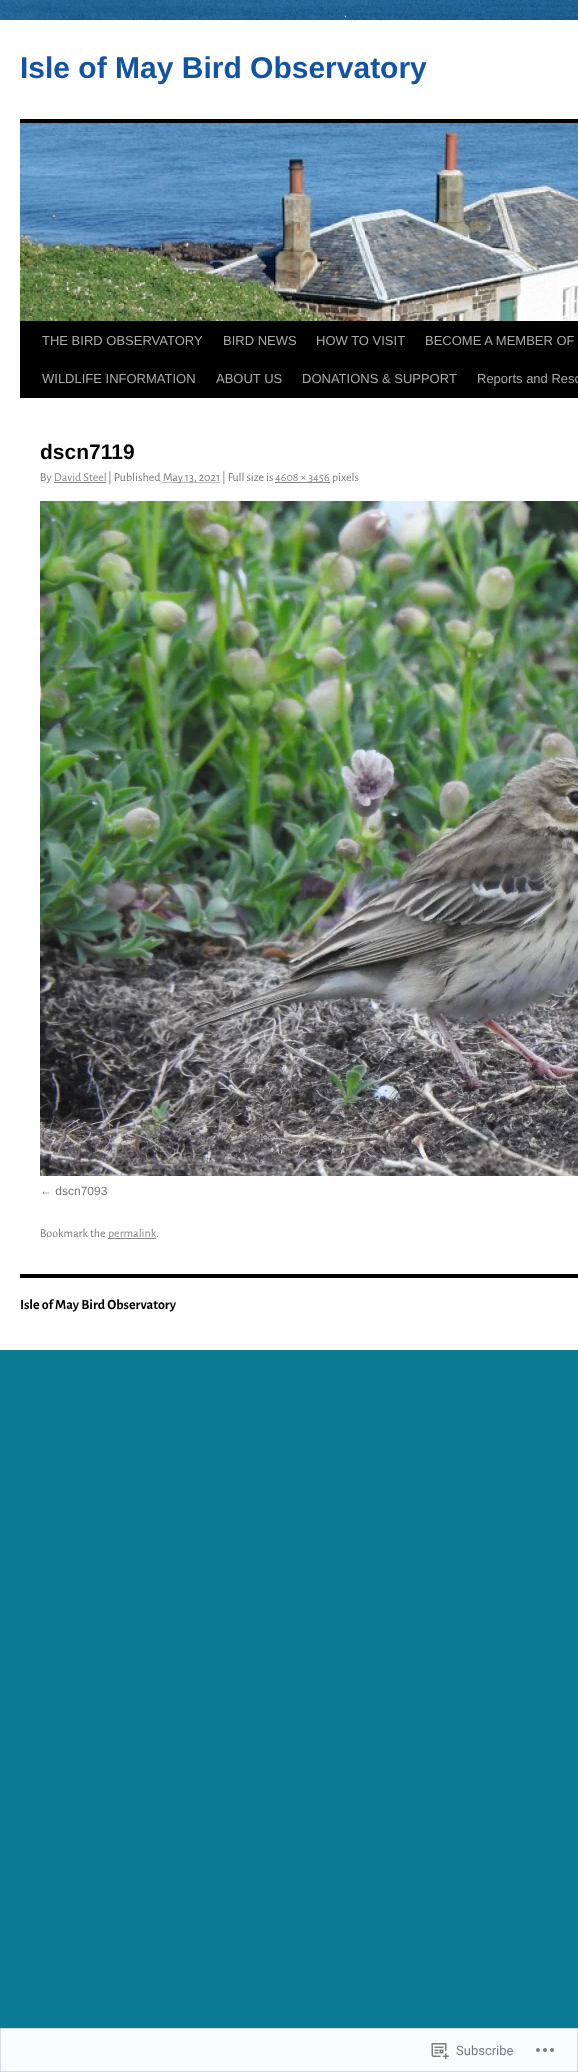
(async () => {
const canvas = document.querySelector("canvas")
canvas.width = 578
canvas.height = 2072
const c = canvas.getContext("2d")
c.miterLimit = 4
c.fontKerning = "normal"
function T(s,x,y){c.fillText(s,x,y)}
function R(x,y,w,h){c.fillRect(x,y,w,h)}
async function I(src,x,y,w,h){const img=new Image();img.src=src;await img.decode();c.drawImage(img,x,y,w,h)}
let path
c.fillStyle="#0b7c93"
R(0,0,578,2072)
await I("1.png",0,0,578,20)
c.fillStyle="#fff"
R(0,20,578,1330)
c.font="bold 30px Liberation Sans"
c.fillStyle="#1353a5"
T("Isle of May Bird Observatory",20,78)
c.fillStyle="#000"
R(20,119,558,4)
R(20,321,558,77)
await I("2.png",20,123,558,198)
c.font="13px Liberation Sans"
c.fillStyle="#aaa"
T("THE BIRD OBSERVATORY",42,345)
T("BIRD NEWS",223,345)
T("HOW TO VISIT",316,345)
T("BECOME A MEMBER OF",425,345)
T("WILDLIFE INFORMATION",42,383)
T("ABOUT US",216,383)
T("DONATIONS & SUPPORT",302,383)
T("Reports and Reso",477,383)
c.font="bold 21px Liberation Sans"
c.fillStyle="#000"
T("dscn7119",40,459)
c.font="12px Alegreya Sans"
c.fillStyle="#777"
T("By",40,481)
c.fillStyle="#888"
T("David Steel",54,481)
R(54,482,52,1)
c.fillStyle="#777"
T("| Published",108,481)
path = new Path2D("M162.5 482.5h57")
c.strokeStyle="#777"
c.setLineDash([1,1])
c.stroke(path)
T("May 13, 2021 | Full size is",163,481)
c.fillStyle="#888"
R(275,482,55,1)
T("4608 × 3456",275,481)
c.fillStyle="#777"
T("pixels",332,481)
await I("3.png",40,501,538,675)
c.font="12px Liberation Sans"
T("← dscn7093",40,1195)
c.font="12px Alegreya Sans"
T("Bookmark the",40,1237)
c.fillStyle="#888"
R(108,1238,48,1)
T("permalink",108,1237)
c.fillStyle="#777"
T(".",156,1237)
c.fillStyle="#000"
R(20,1274,558,4)
c.font="bold 14px Alegreya Sans"
T("Isle of May Bird Observatory",20,1309)
c.fillStyle="#fafcfd"
c.beginPath()
c.rect(.5,2028.5,577,43)
c.fill()
c.strokeStyle="#d8dadd"
c.setLineDash([])
c.stroke()
await I("4.png",431,2043,18,17)
c.font="13px Roboto"
c.fillStyle="#767c82"
T("Subscribe",456,2055)
await I("5.png",536,2048,18,4)
})()
